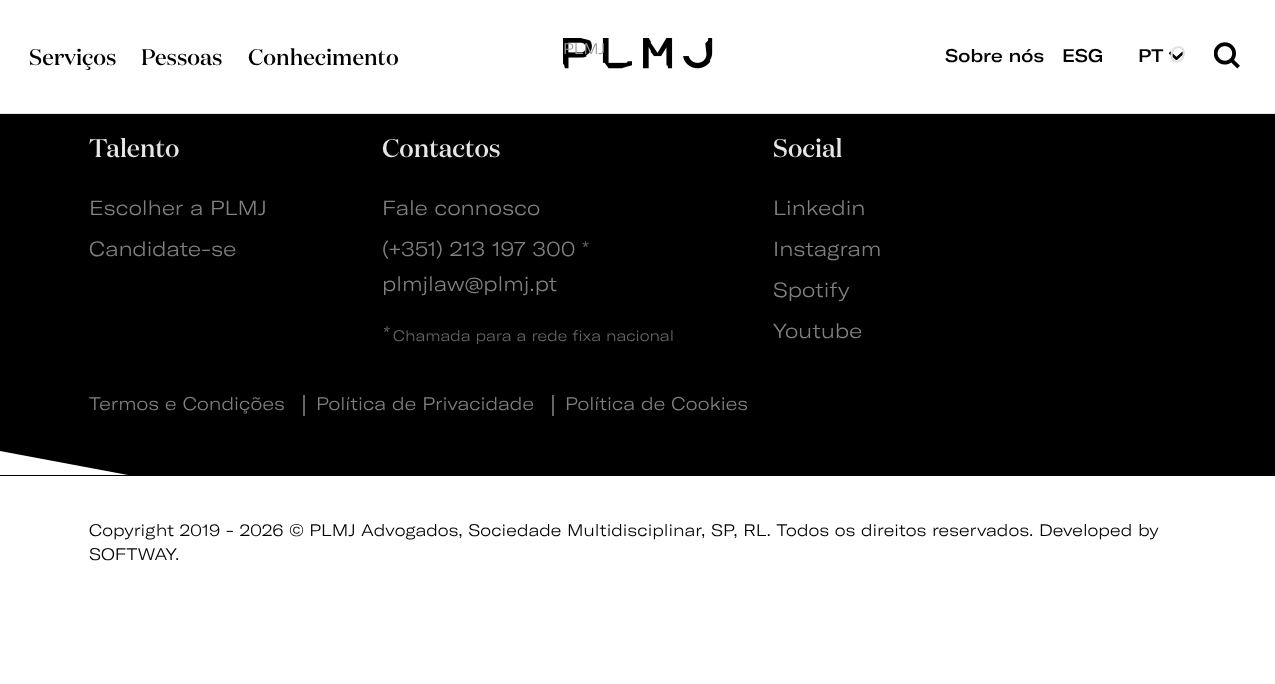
(async () => {
const canvas = document.querySelector("canvas")
canvas.width = 1275
canvas.height = 684
const c = canvas.getContext("2d")
c.miterLimit = 4
c.fontKerning = "normal"
function T(s,x,y){c.fillText(s,x,y)}
function R(x,y,w,h){c.fillRect(x,y,w,h)}
async function I(src,x,y,w,h){const img=new Image();img.src=src;await img.decode();c.drawImage(img,x,y,w,h)}
let path
c.fillStyle="#fff"
R(0,0,1275,684)
c.fillStyle="#e6e6e6"
R(0,113,1275,1)
await I("1.png",563,38,150,31)
c.font="300 15px GT America"
c.fillStyle="#9c9c9c"
T("PLMJ",563,54)
c.font="500 22.5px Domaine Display"
c.fillStyle="#000"
T("Serviços",29,65)
T("Pessoas",141,65)
T("Conhecimento",248,65)
c.font="500 18px GT America"
T("Sobre nós",945,62)
T("ESG",1062,62)
T("PT",1138,62)
await I("2.png",1169,51,16,9)
c.font="italic 22px GT America"
c.fillStyle="#e0e0e0"
T("0",1169,62)
await I("3.png",1214,42,26,27)
c.fillStyle="#000"
R(0,114,1275,362)
c.font="500 25.5px Domaine Display"
c.fillStyle="#e6e6e6"
T("Talento",89,157)
c.font="300 20.25px GT America"
c.fillStyle="#808080"
T("Escolher a PLMJ",89,215)
T("Candidate-se",89,256)
c.font="500 25.5px Domaine Display"
c.fillStyle="#e6e6e6"
T("Contactos",382,157)
c.font="300 20.25px GT America"
c.fillStyle="#808080"
T("Fale connosco",382,215)
T("(+351) 213 197 300",382,256)
c.fillStyle="#666"
T("*",582,256)
c.fillStyle="#808080"
T("plmjlaw@plmj.pt",382,291)
c.font="italic 300 20.25px GT America"
c.fillStyle="#666"
T("*",382,341)
c.font="300 15px GT America"
T("Chamada para a rede fixa nacional",393,341)
c.font="500 25.5px Domaine Display"
c.fillStyle="#e6e6e6"
T("Social",773,157)
c.font="300 20.25px GT America"
c.fillStyle="#808080"
T("Linkedin",773,215)
T("Instagram",773,256)
T("Spotify",773,297)
T("Youtube",773,338)
c.font="300 18px GT America"
T("Termos e Condições",89,410)
c.fillStyle="#666"
R(303,395,2,21)
c.fillStyle="#808080"
T("Política de Privacidade",316,410)
c.fillStyle="#666"
R(552,395,2,21)
c.fillStyle="#808080"
T("Política de Cookies",565,410)
c.fillStyle="#fff"
path = new Path2D("M128 475l-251-47h-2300v47z")
c.fill(path,"evenodd")
c.font="300 16.5px GT America"
c.fillStyle="#000"
T("Copyright 2019 - 2026 © PLMJ Advogados, Sociedade Multidisciplinar, SP, RL. Todos os direitos reservados. Developed by",89,536)
T("SOFTWAY.",89,560)
})()
